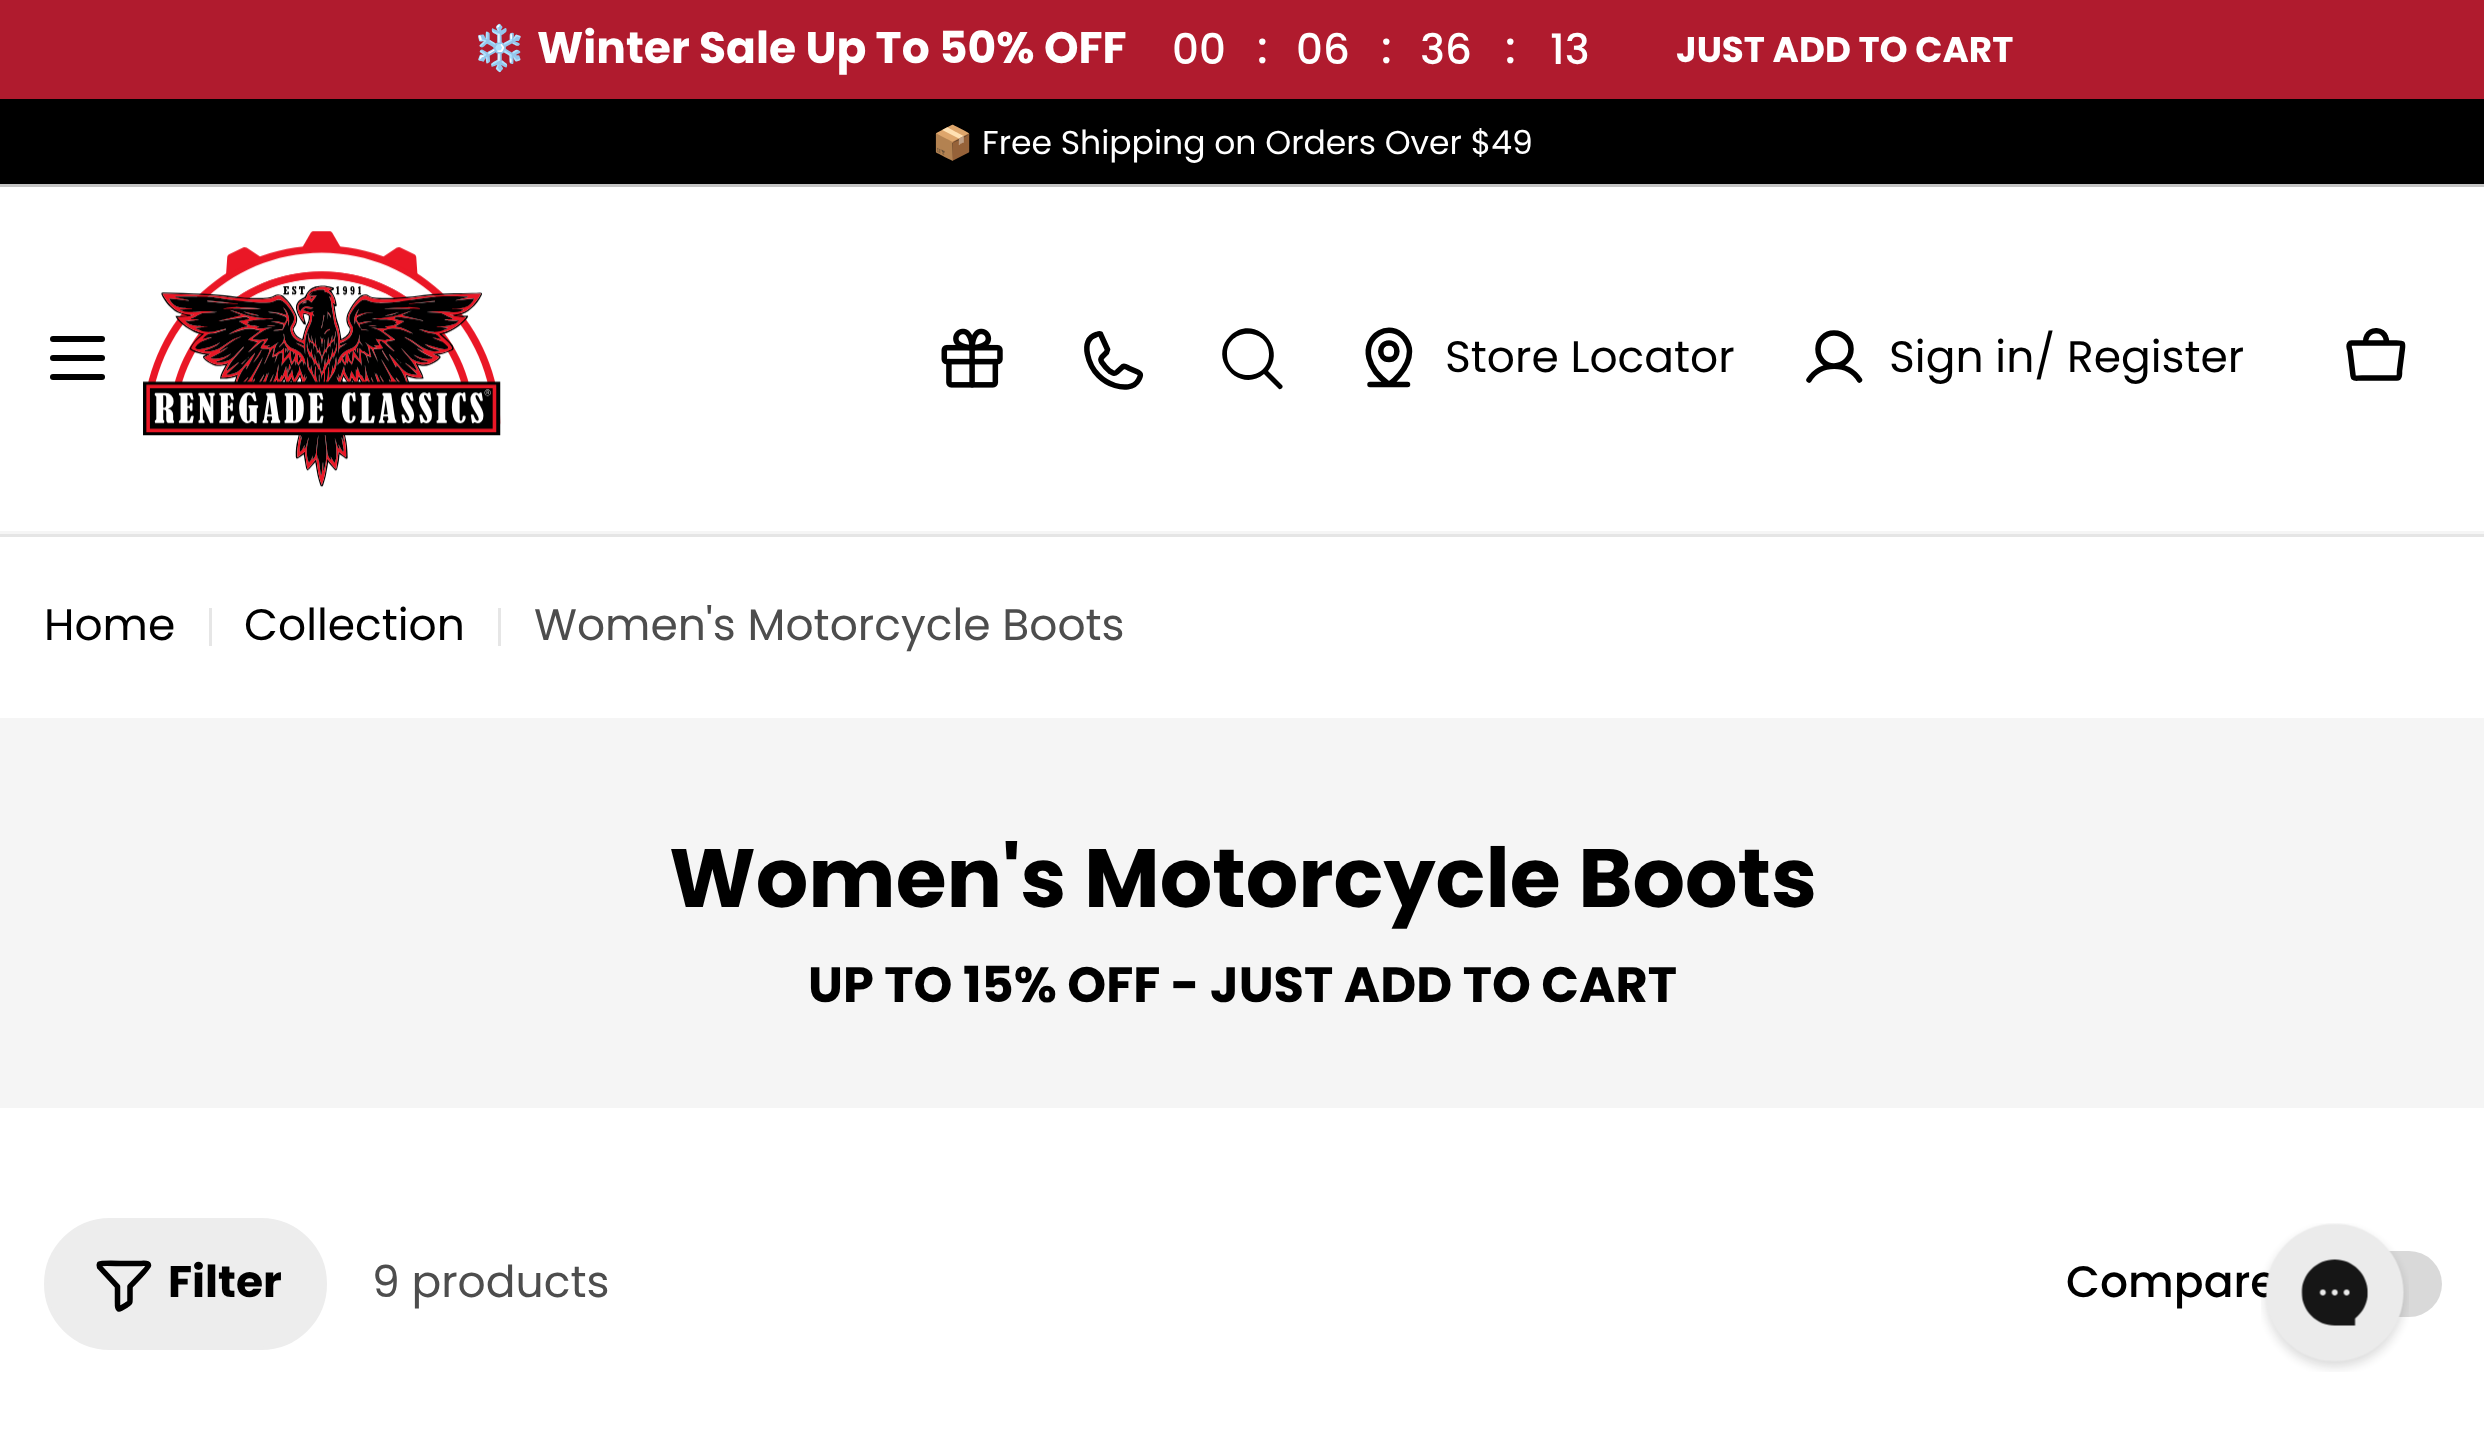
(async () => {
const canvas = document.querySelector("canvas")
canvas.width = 2484
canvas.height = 1435
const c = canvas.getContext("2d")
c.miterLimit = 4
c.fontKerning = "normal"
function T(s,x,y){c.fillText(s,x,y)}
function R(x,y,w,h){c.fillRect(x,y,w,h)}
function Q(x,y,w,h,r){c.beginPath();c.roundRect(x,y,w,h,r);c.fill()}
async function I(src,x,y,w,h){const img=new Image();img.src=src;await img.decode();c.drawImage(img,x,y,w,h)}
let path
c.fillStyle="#fff"
R(0,0,2484,1435)
c.fillStyle="#b01b2e"
R(0,0,2484,99)
c.font="bold 44px Noto Color Emoji"
c.fillStyle="#fff"
T("❄️",472,63)
c.font="bold 44px Poppins"
T("Winter Sale Up To 50% OFF",537,63)
c.font="500 42px Poppins"
T("00",1172,64)
c.font="500 44px Poppins"
T(":",1257,63)
c.font="500 42px Poppins"
T("06",1296,64)
c.font="500 44px Poppins"
T(":",1381,63)
c.font="500 42px Poppins"
T("36",1420,64)
c.font="500 44px Poppins"
T(":",1505,63)
c.font="500 42px Poppins"
T("13",1550,64)
c.font="bold 35.75px Poppins"
T("JUST ADD TO CART",1676,62)
c.fillStyle="#000"
R(0,99,2484,85)
c.fillStyle="#c4c4c4"
R(0,184,2484,3)
c.font="33px Noto Color Emoji"
c.fillStyle="#fff"
T("📦",932,154)
c.font="33px Poppins"
T("Free Shipping on Orders Over $49",982,154)
c.fillStyle="#000"
Q(50,355,55,6,3)
Q(50,336,55,6,3)
Q(50,374,55,6,3)
await I("1.png",143,231,358,257)
await I("2.png",941,328,62,60)
path = new Path2D("M1123 366.5c2-1 5 1.5 6.5 2l7 3c4.5 2 5 3 2 8.5c-4.5 8.5-15.5 8-23.5 5.5c-6.5-2-12-5.5-16.5-10c-9-9-20-35.5-2-41c1.5-.5 3-1 4-.5l7 15.5l-1 3l-4.5 4.5c-1.5 2.5-1.5 3 0 5.5c2 3 4.5 6 7.5 8.5c3.5 2 4.5 3.5 7.5 1z")
c.strokeStyle="#000"
c.lineWidth=5.5
c.stroke(path)
path = new Path2D("M1282 385l-14-14c20-25-15-58-38-35c-23 23 10 58 34 38l15 15c2 1 5-2 3-4zm-55-31c0-27 42-27 42 0c0 28-42 28-42 0z")
c.fill(path)
path = new Path2D("M1370 384.5h37.5m-18.5-25c10.5 0 10.5-16.5 0-16.5c-11 0-11 16.5 0 16.5zm20.5-8c0 18.5-20.5 33-20.5 33c-9-6.5-17.5-16-20-26.5c-5.5-22.5 21-37.5 35.5-20c3 4 5 8.5 5 13.5z")
c.lineCap="round"
c.lineJoin="round"
c.stroke(path)
c.font="44px Poppins"
T("Store Locator",1445,372)
path = new Path2D("M1834 366c9.5 0 17-7.5 17-17c0-9-7.5-16-17-16c-9 0-16 7-16 16c0 9.5 7 17 16 17zm-25 14c11-18.5 39.5-18.5 50.5 0")
c.stroke(path)
T("Sign in/ Register",1889,372)
path = new Path2D("M2397 378h-35c-9.5 0-8.5 2-9.5-7l-2.5-20.5c-.5-1-2.5-7.5 1.5-7.5h41c13 0 10.5-1.5 9 12.5l-2 15.5c0 1.5 .5 7-2.5 7zm-31.5-35c0-2.5 0-4.5 1.5-7c4-7.5 15.5-7 18.5 1c1 2 1 4 1 6")
c.stroke(path)
c.fillStyle="#f5f5f5"
R(0,531,2484,3)
c.fillStyle="#e5e5e5"
R(0,534,2484,3)
c.fillStyle="#000"
T("Home",44,640)
c.fillStyle="#e6e6e6"
R(209,608,3,38)
c.fillStyle="#000"
T("Collection",244,640)
c.fillStyle="#e6e6e6"
R(498,608,3,38)
c.fillStyle="#4d4d4d"
T("Women's Motorcycle Boots",534,640)
c.fillStyle="#f5f5f5"
R(0,718,2484,390)
c.font="bold 82.5px Poppins"
c.fillStyle="#000"
T("Women's Motorcycle Boots",669,907)
c.font="bold 49.5px Poppins"
T("UP TO 15% OFF - JUST ADD TO CART",808,1002)
c.fillStyle="#ededed"
c.beginPath()
c.roundRect(45.5,1219.5,280,129,64.5)
c.fill()
c.strokeStyle="#ededed"
c.lineWidth=3
c.lineJoin="miter"
c.stroke()
path = new Path2D("M99.5 1267c-.5-1-.5-2 0-3c2-1.5 21-.5 24-.5h15.5c3.5 0 9.5-1 9.5 2c0 2.5-16 18-18.5 21v12.5c0 4.5 0 3.5-3.5 6l-6 3.5c-3.5 2.5-3-4-3-8.5v-13.5z")
c.strokeStyle="#000"
c.lineWidth=5.5
c.lineJoin="round"
c.stroke(path)
c.font="bold 44px Poppins"
c.fillStyle="#000"
T("Filter",168,1297)
c.font="44px Poppins"
c.fillStyle="#4d4d4d"
T("9 products",372,1297)
c.font="500 44px Poppins"
c.fillStyle="#000"
T("Compare",2066,1297)
c.fillStyle="#d9d9d9"
Q(2310,1251,132,66,33)
await I("3.png",2261,1223,148,149)
})()
